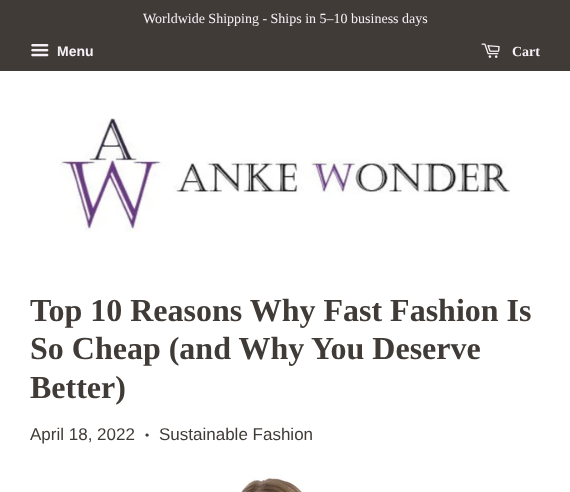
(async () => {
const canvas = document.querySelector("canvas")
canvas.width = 570
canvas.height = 492
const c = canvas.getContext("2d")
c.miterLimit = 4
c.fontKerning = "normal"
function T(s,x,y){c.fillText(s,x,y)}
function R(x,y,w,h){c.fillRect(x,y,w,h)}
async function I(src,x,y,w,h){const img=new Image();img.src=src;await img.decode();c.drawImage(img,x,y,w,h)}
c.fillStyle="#fff"
R(0,0,570,492)
c.fillStyle="#403b37"
R(0,0,570,71)
c.font="14px Liberation Serif"
c.fillStyle="#f5f1f7"
T("Worldwide Shipping - Ships in 5–10 business days",143,23)
await I("1.png",31,44,18,13)
c.font="bold 14px Liberation Sans"
T("Menu",57,56)
await I("2.png",481,43,19,15)
c.font="bold 14px Liberation Serif"
T("Cart",512,56)
await I("3.png",60,118,450,115)
c.font="bold 32px Liberation Serif"
c.fillStyle="#403b37"
T("Top 10 Reasons Why Fast Fashion Is",30,321)
T("So Cheap (and Why You Deserve",30,359)
T("Better)",30,398)
c.font="17px Liberation Sans"
T("April 18, 2022",30,440)
c.font="12px Liberation Sans"
T("•",145,439)
c.font="17px Liberation Sans"
T("Sustainable Fashion",159,440)
await I("4.png",238,474,65,18)
})()
